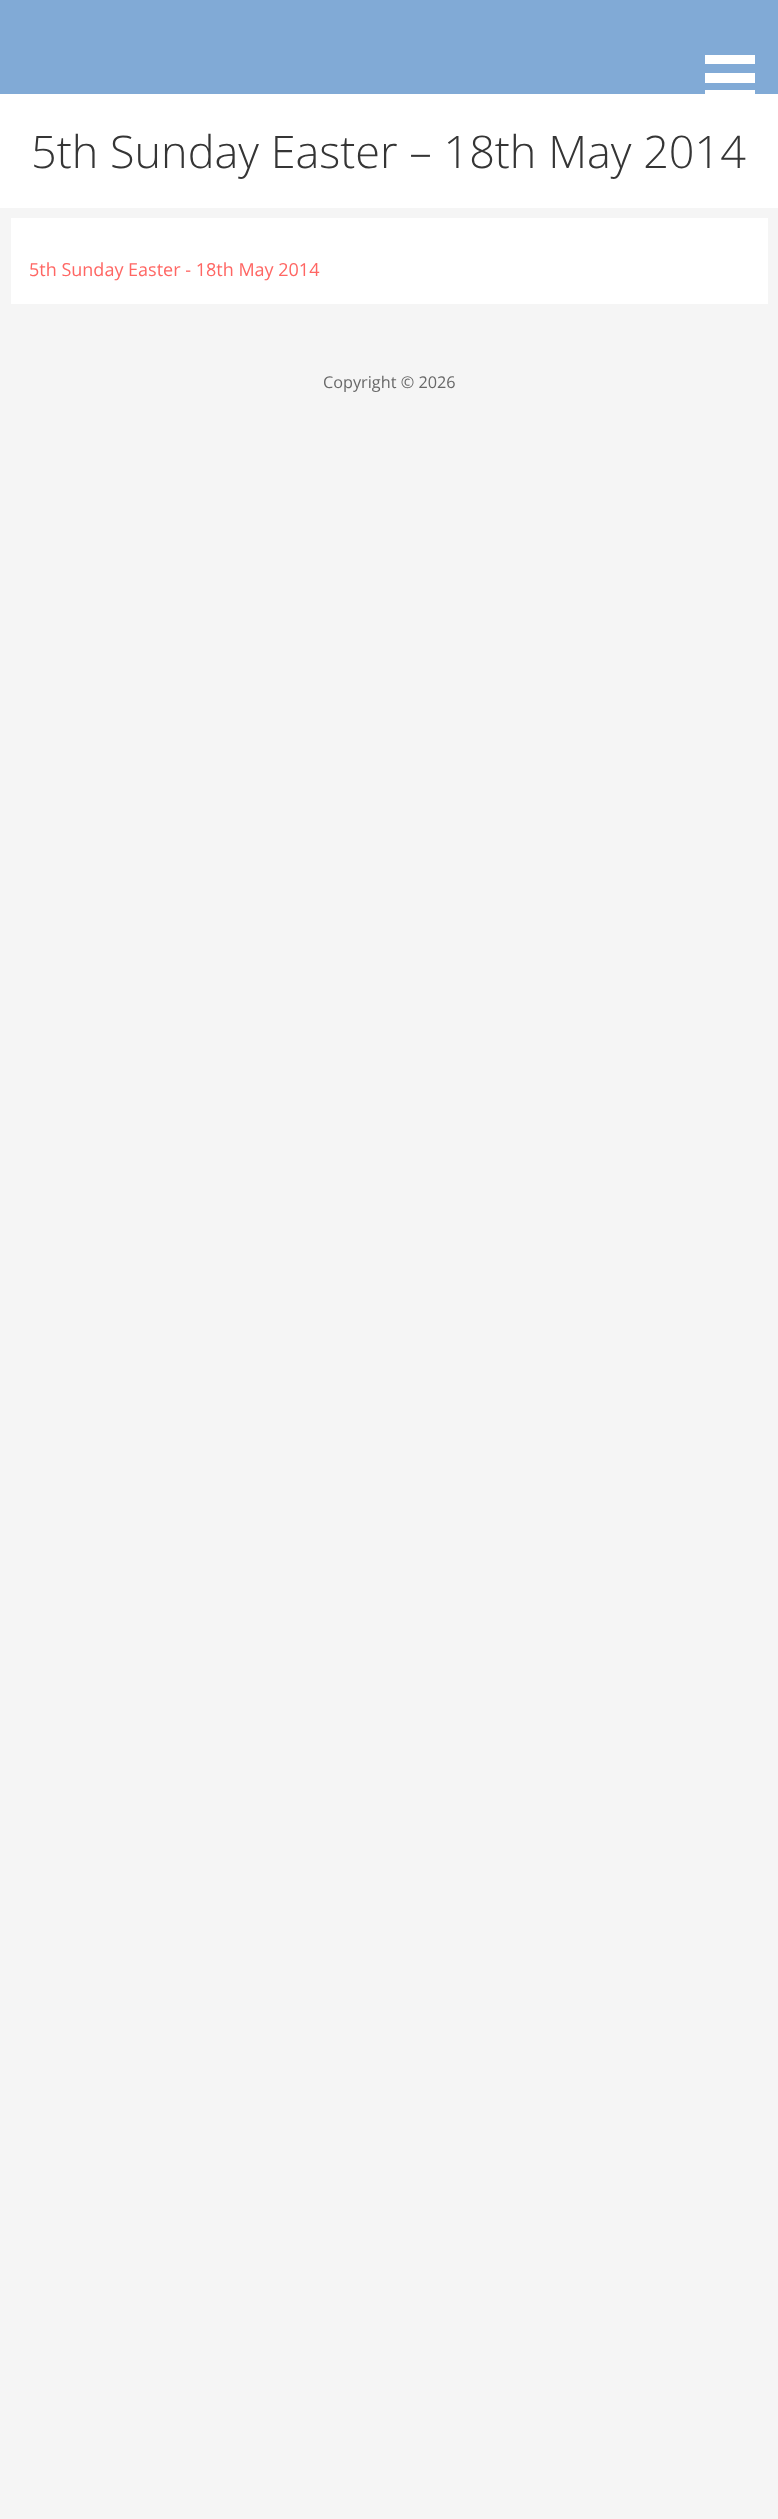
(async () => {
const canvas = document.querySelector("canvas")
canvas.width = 778
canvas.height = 2519
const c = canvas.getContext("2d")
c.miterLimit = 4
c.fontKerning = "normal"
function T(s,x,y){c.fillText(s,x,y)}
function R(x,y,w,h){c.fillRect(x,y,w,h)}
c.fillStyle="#f5f5f5"
R(0,0,778,2519)
c.fillStyle="#81aad6"
R(0,0,778,94)
c.fillStyle="#fff"
R(705,55,50,9)
R(705,73,50,10)
R(705,90,50,4)
R(0,94,778,114)
c.font="300 45px Open Sans"
c.fillStyle="#353535"
T("5th Sunday Easter – 18th May 2014",31,168)
c.fillStyle="#fff"
R(11,218,757,86)
c.font="18px Open Sans"
c.fillStyle="#ff6663"
T("5th Sunday Easter - 18th May 2014",29,276)
c.font="16.25px Open Sans"
c.fillStyle="#686868"
T("Copyright © 2026",323,388)
})()
